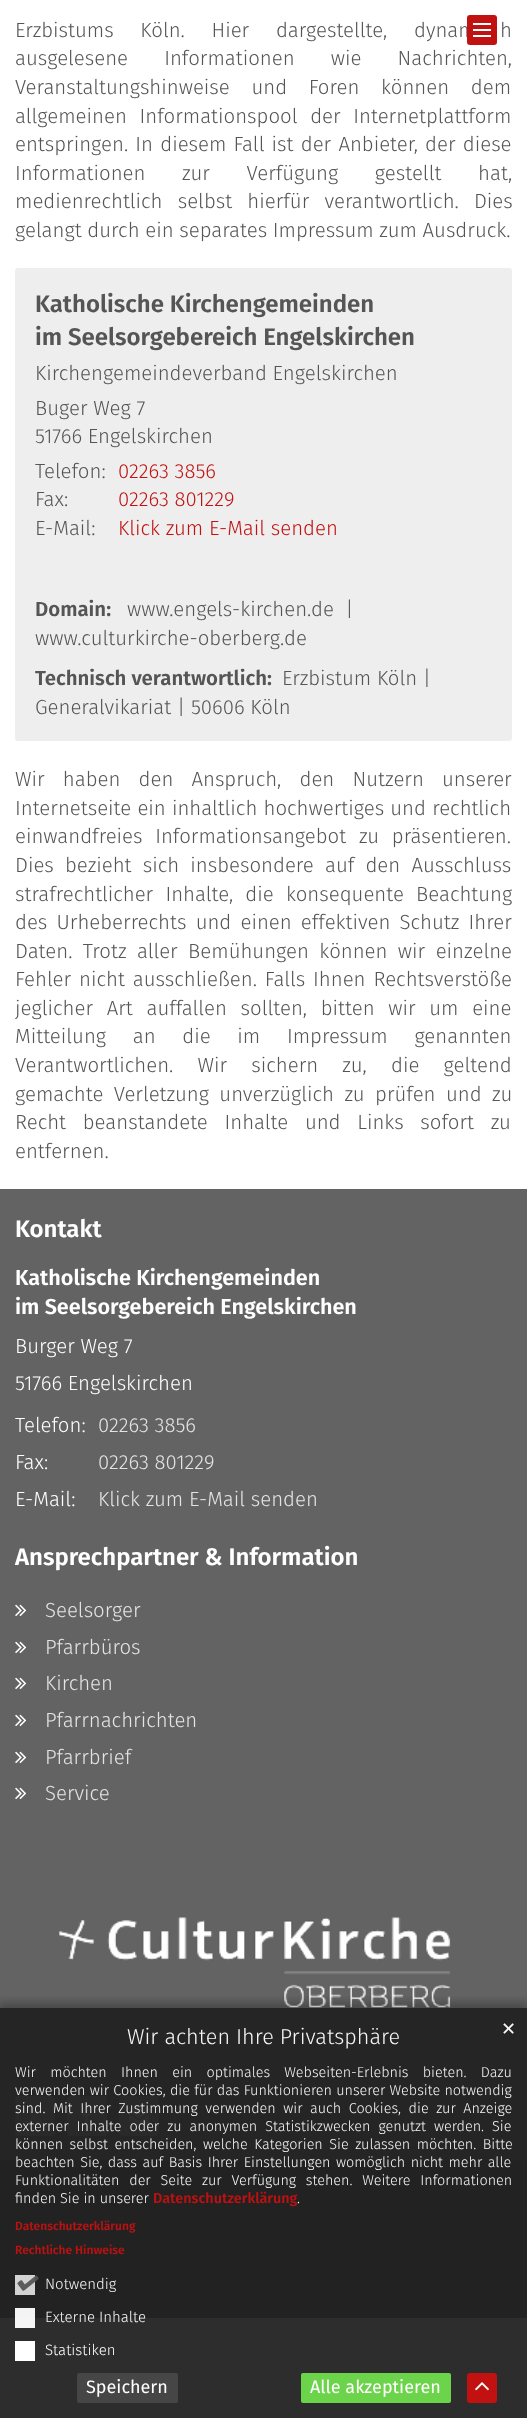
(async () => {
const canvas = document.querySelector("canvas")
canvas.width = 527
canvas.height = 2418
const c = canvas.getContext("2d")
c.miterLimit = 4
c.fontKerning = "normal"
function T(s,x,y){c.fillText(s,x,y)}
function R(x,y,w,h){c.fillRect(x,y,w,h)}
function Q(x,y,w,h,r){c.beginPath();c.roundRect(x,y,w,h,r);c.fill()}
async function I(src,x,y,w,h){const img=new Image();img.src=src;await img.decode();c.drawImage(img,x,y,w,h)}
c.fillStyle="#fff"
R(0,0,527,2418)
c.fillStyle="#2d2d2d"
R(0,2318,527,100)
c.fillStyle="#f5f5f5"
R(15,2318,20,10)
c.wordSpacing="21px"
c.font="300 20.4px Fira Sans"
c.fillStyle="#555"
T("Erzbistums Köln. Hier dargestellte, dynam",15,37)
c.fillStyle="#c11111"
Q(467,15,30,30,3)
c.fillStyle="#fff"
R(473,29,18,2)
R(473,23,18,2)
R(473,35,18,2)
c.fillStyle="#555"
T("h",500,37)
c.wordSpacing="30.5px"
T("ausgelesene Informationen wie Nachrichten,",15,65)
c.wordSpacing="16px"
T("Veranstaltungshinweise und Foren können dem",15,94)
c.wordSpacing="7px"
T("allgemeinen Informationspool der Internetplattform",15,123)
c.wordSpacing="1.5px"
T("entspringen. In diesem Fall ist der Anbieter, der diese",15,151)
c.wordSpacing="31px"
T("Informationen zur Verfügung gestellt hat,",15,180)
c.wordSpacing="9.5px"
T("medienrechtlich selbst hierfür verantwortlich. Dies",15,208)
c.wordSpacing="0px"
T("gelangt durch ein separates Impressum zum Ausdruck.",15,237)
c.fillStyle="#eee"
Q(15,268,497,473,3)
c.font="600 24px Fira Sans"
c.fillStyle="#555"
T("Katholische Kirchengemeinden",35,312)
T("im Seelsorgebereich Engelskirchen",35,345)
c.font="300 20.4px Fira Sans"
T("Kirchengemeindeverband Engelskirchen",35,380)
T("Buger Weg 7",35,415)
T("51766 Engelskirchen",35,443)
T("Telefon:",35,478)
c.fillStyle="#c11111"
T("02263 3856",118,478)
c.fillStyle="#555"
T("Fax:",35,506)
c.fillStyle="#c11111"
T("02263 801229",118,506)
c.fillStyle="#555"
T("E-Mail:",35,535)
c.fillStyle="#c11111"
T("Klick zum E-Mail senden",118,535)
c.font="600 20.4px Fira Sans"
c.fillStyle="#555"
T("Domain:",35,616)
c.font="300 20.4px Fira Sans"
T("www.engels-kirchen.de  |",127,616)
T("www.culturkirche-oberberg.de",35,645)
c.font="600 20.4px Fira Sans"
T("Technisch verantwortlich:",35,685)
c.font="300 20.4px Fira Sans"
T("Erzbistum Köln |",282,685)
T("Generalvikariat | 50606 Köln",35,714)
c.wordSpacing="12.5px"
T("Wir haben den Anspruch, den Nutzern unserer",15,786)
c.wordSpacing="0.5px"
T("Internetseite ein inhaltlich hochwertiges und rechtlich",15,815)
c.wordSpacing="7px"
T("einwandfreies Informationsangebot zu präsentieren.",15,843)
c.wordSpacing="5.5px"
T("Dies bezieht sich insbesondere auf den Ausschluss",15,872)
c.wordSpacing="6.5px"
T("strafrechtlicher Inhalte, die konsequente Beachtung",15,901)
c.wordSpacing="3.5px"
T("des Urheberrechts und einen effektiven Schutz Ihrer",15,929)
c.wordSpacing="4.75px"
T("Daten. Trotz aller Bemühungen können wir einzelne",15,958)
c.wordSpacing="2.25px"
T("Fehler nicht ausschließen. Falls Ihnen Rechtsverstöße",15,986)
c.wordSpacing="8px"
T("jeglicher Art auffallen sollten, bitten wir um eine",15,1015)
c.wordSpacing="21px"
T("Mitteilung an die im Impressum genannten",15,1043)
c.wordSpacing="18.5px"
T("Verantwortlichen. Wir sichern zu, die geltend",15,1072)
c.wordSpacing="4.75px"
T("gemachte Verletzung unverzüglich zu prüfen und zu",15,1101)
c.wordSpacing="11px"
T("Recht beanstandete Inhalte und Links sofort zu",15,1129)
c.wordSpacing="0px"
T("entfernen.",15,1158)
c.fillStyle="#636363"
R(0,1189,527,819)
c.fillStyle="#252525"
R(0,2008,527,152)
c.font="600 24px Fira Sans"
c.fillStyle="#fff"
T("Kontakt",15,1237)
c.font="600 21.6px Fira Sans"
T("Katholische Kirchengemeinden",15,1285)
T("im Seelsorgebereich Engelskirchen",15,1314)
c.font="300 20.4px Fira Sans"
T("Burger Weg 7",15,1353)
T("51766 Engelskirchen",15,1390)
T("Telefon:",15,1432)
c.fillStyle="#e4e4e4"
T("02263 3856",98,1432)
c.fillStyle="#fff"
T("Fax:",15,1469)
c.fillStyle="#e4e4e4"
T("02263 801229",98,1469)
c.fillStyle="#fff"
T("E-Mail:",15,1506)
c.fillStyle="#e4e4e4"
T("Klick zum E-Mail senden",98,1506)
c.font="600 24px Fira Sans"
c.fillStyle="#fff"
T("Ansprechpartner & Information",15,1565)
await I("1.png",15,1604,12,13)
c.font="300 20.4px Fira Sans"
c.fillStyle="#e4e4e4"
T("Seelsorger",45,1617)
await I("1.png",15,1641,12,13)
T("Pfarrbüros",45,1654)
await I("1.png",15,1677,12,13)
T("Kirchen",45,1690)
await I("1.png",15,1714,12,13)
T("Pfarrnachrichten",45,1727)
await I("1.png",15,1751,12,13)
T("Pfarrbrief",45,1764)
await I("1.png",15,1787,12,13)
T("Service",45,1800)
await I("2.png",59,1917,392,91)
c.fillStyle="#292929"
Q(15,2096,40,40,2)
await I("3.png",26,2108,18,17)
Q(67,2096,40,40,2)
await I("4.png",82,2105,10,20)
Q(119,2096,40,40,2)
await I("5.png",129,2108,20,17)
c.fillStyle="#222"
R(0,2160,527,158)
c.fillStyle="#f4f4f4"
R(15,2308,20,10)
c.save()
c.beginPath()
c.rect(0,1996,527,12)
c.clip()
c.fillStyle="#00000047"
c.filter="blur(5px)"
c.beginPath()
c.rect(-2,2003,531,414)
c.fill()
c.filter="none"
c.restore()
c.font="300 21.6px Fira Sans"
c.fillStyle="#f7f7f7"
T("Wir achten Ihre Privatsphäre",127,2044)
c.font="18px DejaVu Sans"
T("✕",501,2035)
c.wordSpacing="10.25px"
c.font="300 14.4px Fira Sans"
T("Wir möchten Ihnen ein optimales Webseiten-Erlebnis bieten. Dazu",15,2077)
c.wordSpacing="0.25px"
T("verwenden wir Cookies, die für das Funktionieren unserer Website notwendig",15,2095)
c.wordSpacing="3.5px"
T("sind. Mit Ihrer Zustimmung verwenden wir auch Cookies, die zur Anzeige",15,2113)
c.wordSpacing="4px"
T("externer Inhalte oder zu anonymen Statistikzwecken genutzt werden. Sie",15,2131)
c.wordSpacing="2.5px"
T("können selbst entscheiden, welche Kategorien Sie zulassen möchten. Bitte",15,2149)
c.wordSpacing="1.5px"
T("beachten Sie, dass auf Basis Ihrer Einstellungen womöglich nicht mehr alle",15,2167)
c.wordSpacing="5.75px"
T("Funktionalitäten der Seite zur Verfügung stehen. Weitere Informationen",15,2185)
c.wordSpacing="0px"
T("finden Sie in unserer",15,2203)
c.font="600 14.4px Fira Sans"
c.fillStyle="#b91212"
T("Datenschutzerklärung",153,2203)
c.font="300 14.4px Fira Sans"
c.fillStyle="#f7f7f7"
T(".",297,2203)
c.font="600 12px Fira Sans"
c.fillStyle="#b91212"
T("Datenschutzerklärung",15,2230)
T("Rechtliche Hinweise",15,2254)
c.fillStyle="#ddddddf2"
R(15,2275,20,20)
await I("6.png",17,2275,22,16)
c.font="300 15px Fira Sans"
c.fillStyle="#f7f7f7"
T("Notwendig",45,2289)
T("Externe Inhalte",45,2322)
c.fillStyle="#fff"
R(15,2341,20,20)
T("Statistiken",45,2355)
c.fillStyle="#464646"
Q(77,2373,101,30,2)
c.font="18px Fira Sans"
c.fillStyle="#fff"
T("Speichern",86,2393)
c.fillStyle="#6cd44b"
Q(301,2373,150,30,2)
c.fillStyle="#fff"
T("Alle akzeptieren",310,2393)
c.fillStyle="#c11111"
Q(467,2373,30,30,3)
await I("7.png",475,2382,14,9)
})()
